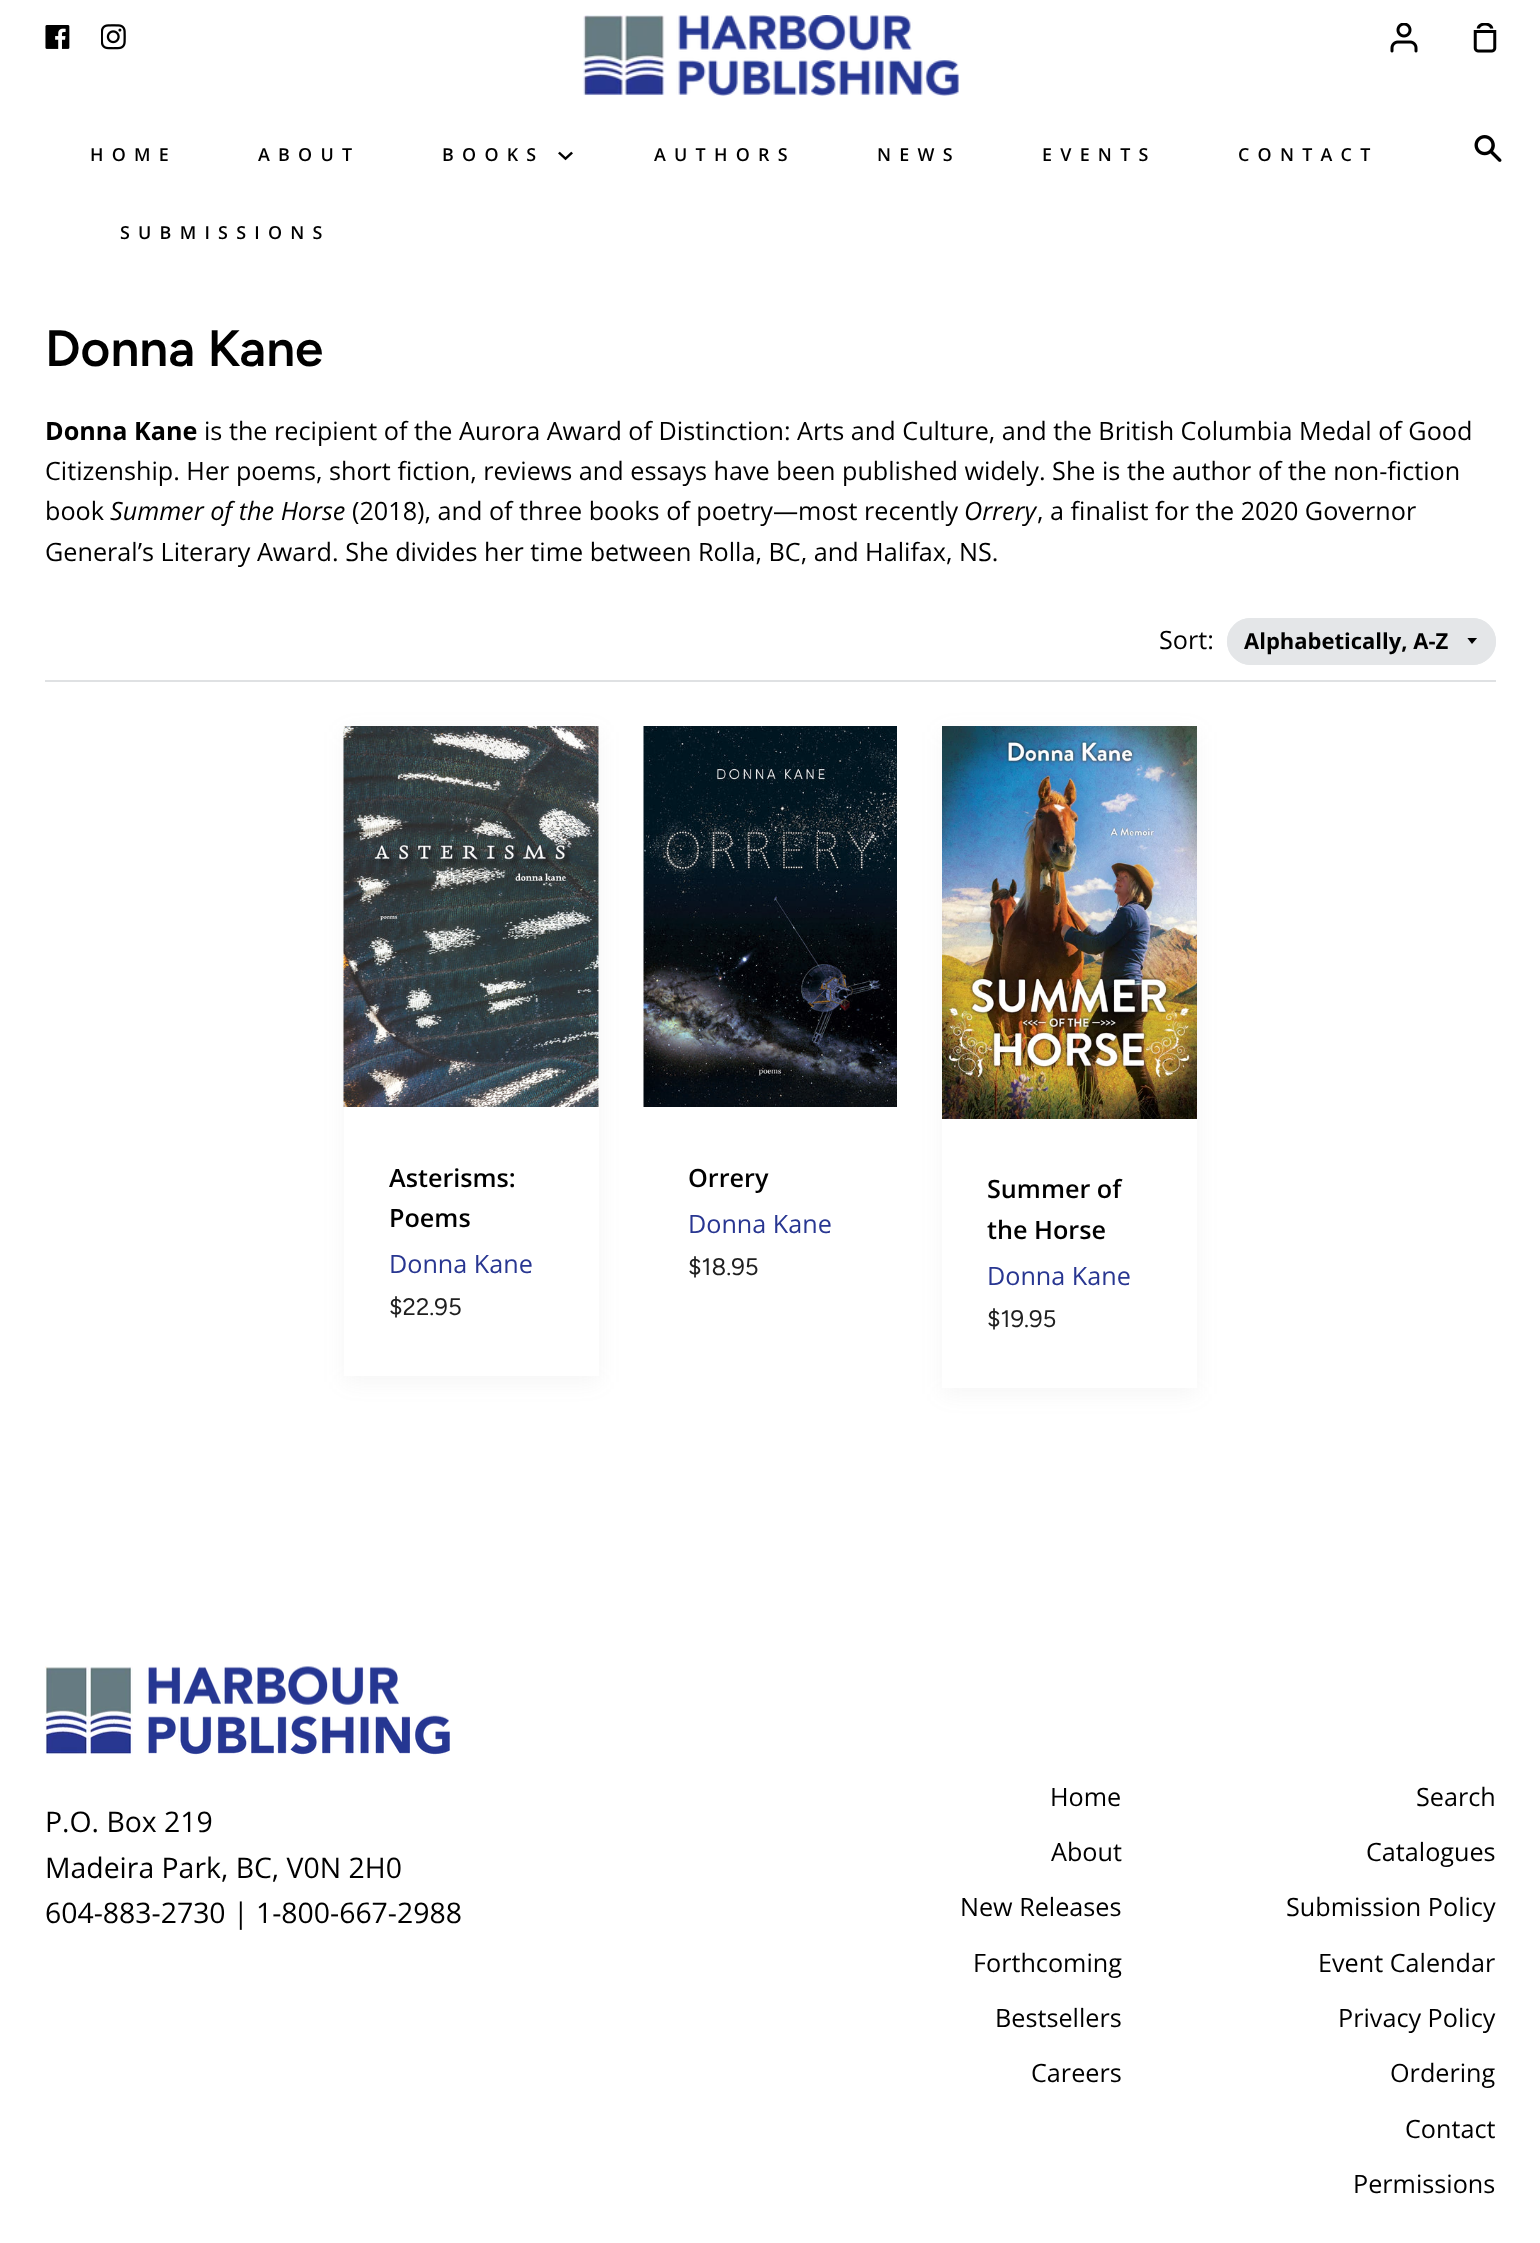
(async () => {
const canvas = document.querySelector("canvas")
canvas.width = 1540
canvas.height = 2243
const c = canvas.getContext("2d")
c.miterLimit = 4
c.fontKerning = "normal"
function T(s,x,y){c.fillText(s,x,y)}
function R(x,y,w,h){c.fillRect(x,y,w,h)}
function Q(x,y,w,h,r){c.beginPath();c.roundRect(x,y,w,h,r);c.fill()}
async function I(src,x,y,w,h){const img=new Image();img.src=src;await img.decode();c.drawImage(img,x,y,w,h)}
let path
c.fillStyle="#fff"
R(0,0,1540,2243)
await I("1.png",45,25,25,24)
await I("2.png",101,24,25,26)
await I("3.png",583,15,376,81)
await I("4.png",1390,23,28,30)
await I("5.png",1473,23,24,30)
c.letterSpacing="8.25px"
c.font="600 17.9px Open Sans"
c.fillStyle="#000"
T("HOME",90,161)
T("ABOUT",258,161)
T("BOOKS",442,161)
await I("6.png",558,151,15,10)
T("AUTHORS",654,161)
T("NEWS",877,161)
T("EVENTS",1042,161)
T("CONTACT",1238,161)
T("SUBMISSIONS",120,239)
await I("7.png",1474,135,28,27)
c.letterSpacing="0px"
c.font="600 51.25px Figtree"
T("Donna Kane",45,366)
c.font="bold 25.2px Open Sans"
T("Donna Kane",45,440)
c.font="25.2px Open Sans"
T("is the recipient of the Aurora Award of Distinction: Arts and Culture, and the British Columbia Medal of Good",204,440)
T("Citizenship. Her poems, short fiction, reviews and essays have been published widely. She is the author of the non-fiction",45,480)
T("book",45,520)
c.font="italic 25.2px Open Sans"
T("Summer of the Horse",110,520)
c.font="25.2px Open Sans"
T("(2018), and of three books of poetry—most recently",352,520)
c.font="italic 25.2px Open Sans"
T("Orrery",964,520)
c.font="25.2px Open Sans"
T(", a finalist for the 2020 Governor",1037,520)
T("General’s Literary Award. She divides her time between Rolla, BC, and Halifax, NS.",45,561)
T("Sort:",1159,649)
c.fillStyle="#e4e6e8"
Q(1227,618,269,47,23.5)
c.save()
c.beginPath()
c.rect(1467,638,12,7)
c.clip()
c.fillStyle="#000"
path = new Path2D("M1467 637.5l5 6.5l5.5-6.5z")
c.fill(path)
c.restore()
c.beginPath()
c.roundRect(1228,619,267,45,22.5)
c.strokeStyle="#e4e6e8"
c.lineWidth=2
c.stroke()
c.font="bold 22px Open Sans"
c.fillStyle="#000"
T("Alphabetically, A-Z",1244,649)
c.fillStyle="#dfe1e3"
R(45,680,1451,2)
c.fillStyle="#80808014"
c.filter="blur(10.5px)"
c.beginPath()
c.rect(344,732,255,650)
c.fill()
c.filter="none"
await I("8.png",343,726,256,381)
c.fillStyle="#fff"
R(344,1107,255,269)
c.font="600 25.2px Open Sans"
c.fillStyle="#000"
T("Asterisms:",389,1187)
T("Poems",389,1227)
c.font="25.2px Open Sans"
c.fillStyle="#283691"
T("Donna Kane",389,1273)
c.font="24px Figtree"
c.fillStyle="#1f1f1f"
T("$22.95",389,1315)
await I("9.png",643,726,254,381)
c.font="600 25.2px Open Sans"
c.fillStyle="#000"
T("Orrery",688,1187)
c.font="25.2px Open Sans"
c.fillStyle="#283691"
T("Donna Kane",688,1233)
c.font="24px Figtree"
c.fillStyle="#1f1f1f"
T("$18.95",688,1275)
c.fillStyle="#80808014"
c.filter="blur(10.5px)"
c.beginPath()
c.rect(942,732,255,662)
c.fill()
c.filter="none"
await I("10.png",942,726,255,393)
c.fillStyle="#fff"
R(942,1119,255,269)
c.font="600 25.2px Open Sans"
c.fillStyle="#000"
T("Summer of",987,1198)
T("the Horse",987,1239)
c.font="25.2px Open Sans"
c.fillStyle="#283691"
T("Donna Kane",987,1285)
c.font="24px Figtree"
c.fillStyle="#1f1f1f"
T("$19.95",987,1327)
await I("11.png",45,1666,405,89)
c.font="28.4px Open Sans"
c.fillStyle="#000"
T("P.O. Box 219",45,1832)
T("Madeira Park, BC, V0N 2H0",45,1878)
T("604-883-2730 | 1-800-667-2988",45,1923)
c.font="25.2px Open Sans"
T("Home",1050,1806)
T("About",1051,1861)
T("New Releases",960,1916)
T("Forthcoming",973,1972)
T("Bestsellers",995,2027)
T("Careers",1031,2082)
T("Search",1416,1806)
T("Catalogues",1366,1861)
T("Submission Policy",1286,1916)
T("Event Calendar",1318,1972)
T("Privacy Policy",1338,2027)
T("Ordering",1390,2082)
T("Contact",1405,2138)
T("Permissions",1353,2193)
})()
